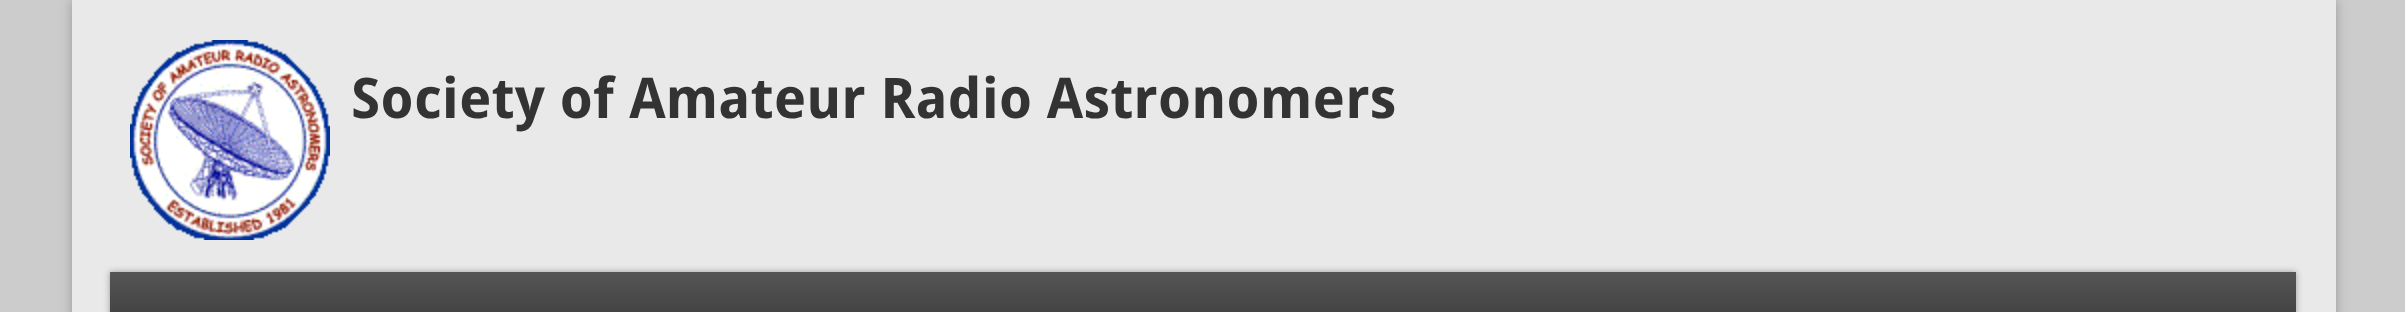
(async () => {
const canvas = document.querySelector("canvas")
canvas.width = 2405
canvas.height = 312
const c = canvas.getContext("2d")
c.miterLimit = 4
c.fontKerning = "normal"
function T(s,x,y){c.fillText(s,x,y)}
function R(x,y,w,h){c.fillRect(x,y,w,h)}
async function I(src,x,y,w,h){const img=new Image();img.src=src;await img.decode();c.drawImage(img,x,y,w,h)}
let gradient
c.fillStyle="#ccc"
R(0,0,2405,312)
c.fillStyle="#999"
c.filter="blur(6px)"
c.beginPath()
c.rect(72,0,2264,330)
c.fill()
c.filter="none"
c.fillStyle="#e9e9e9"
R(72,0,2264,312)
await I("1.png",130,40,200,200)
c.font="bold 56px Droid Sans"
c.fillStyle="#333"
T("Society of Amateur Radio Astronomers",351,118)
c.fillStyle="#999"
c.filter="blur(3px)"
c.beginPath()
c.rect(110,272,2186,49)
c.fill()
c.filter="none"
gradient = c.createLinearGradient(1203,272,1203,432)
gradient.addColorStop(0,"#555")
gradient.addColorStop(.5,"#333")
gradient.addColorStop(.5,"#555")
gradient.addColorStop(1,"#333")
c.fillStyle = gradient
R(110,272,2186,40)
})()
